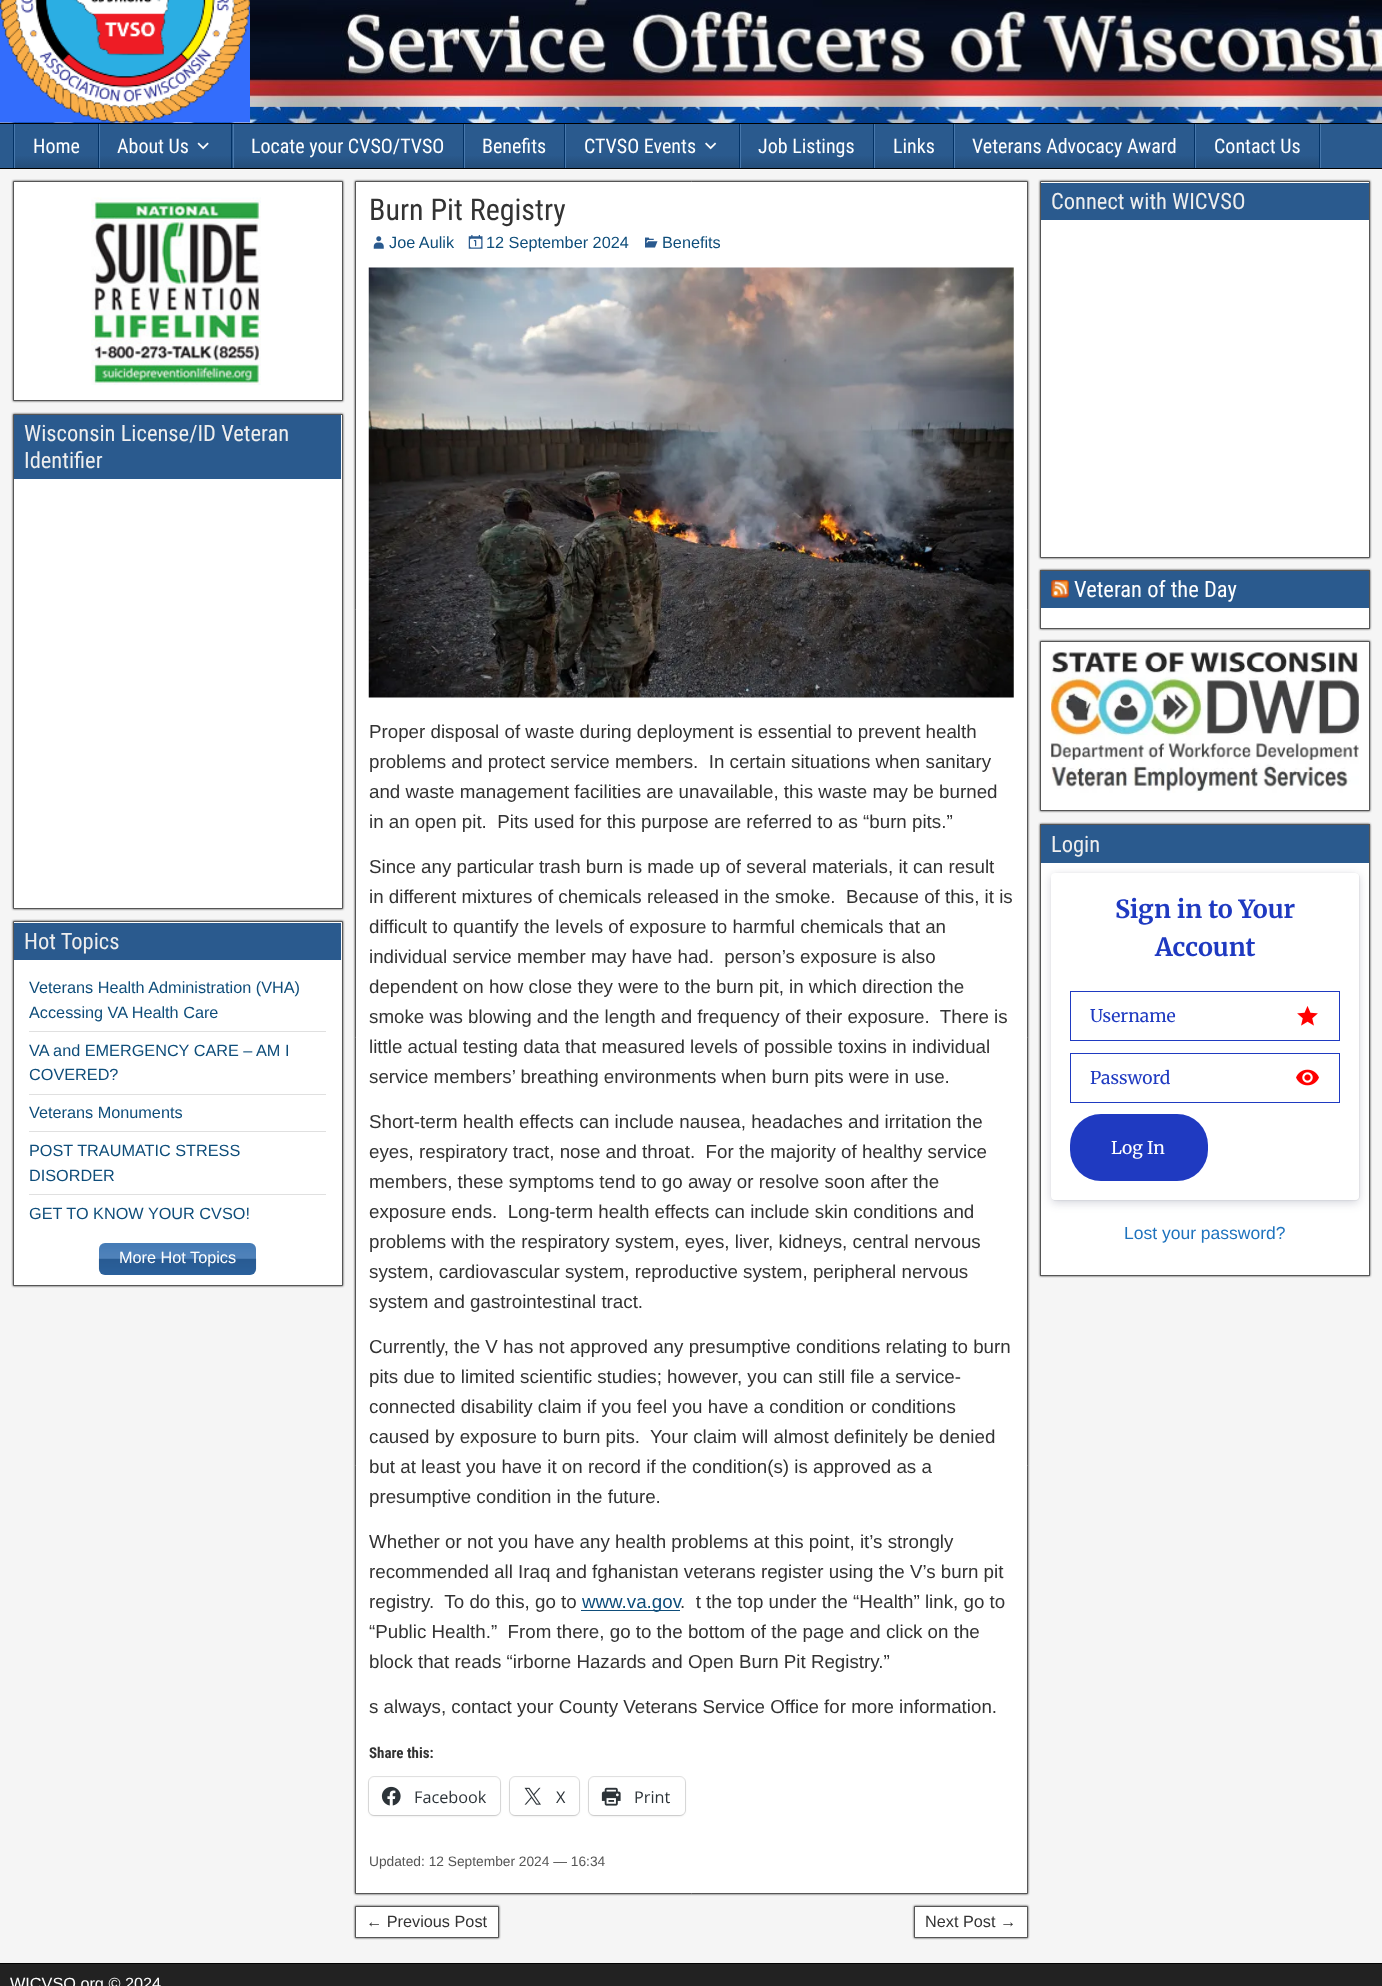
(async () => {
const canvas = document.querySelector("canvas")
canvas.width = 1382
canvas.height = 1986
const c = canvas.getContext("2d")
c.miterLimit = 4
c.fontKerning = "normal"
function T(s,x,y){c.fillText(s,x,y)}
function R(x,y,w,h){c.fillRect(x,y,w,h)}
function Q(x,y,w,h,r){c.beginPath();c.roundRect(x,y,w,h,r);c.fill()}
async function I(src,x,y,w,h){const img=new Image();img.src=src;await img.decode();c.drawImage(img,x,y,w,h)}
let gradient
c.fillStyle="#fff"
R(0,0,1382,1986)
await I("1.png",0,0,1382,123)
c.fillStyle="#000"
R(0,123,1382,1)
await I("2.png",0,0,250,123)
c.fillStyle="#2a5a8e"
R(0,124,1382,44)
c.fillStyle="#000"
R(0,168,1382,1)
c.fillStyle="#4878ac"
R(1320,124,1,44)
c.fillStyle="#023266"
R(13,124,1,44)
gradient = c.createLinearGradient(56,124,56,168)
gradient.addColorStop(.7,"#2a5a8e")
gradient.addColorStop(1,"#244d79")
c.fillStyle = gradient
R(15,156,83,12)
c.fillStyle="#023266"
R(98,124,1,44)
c.fillStyle="#4878ac"
R(14,124,1,44)
c.font="20px Roboto Condensed"
c.fillStyle="#fff"
T("Home",33,153)
gradient = c.createLinearGradient(166,124,166,168)
gradient.addColorStop(.7,"#2a5a8e")
gradient.addColorStop(1,"#244d79")
c.fillStyle = gradient
R(100,156,133,12)
c.fillStyle="#023266"
R(231,124,1,44)
c.fillStyle="#4878ac"
R(99,124,1,44)
c.fillStyle="#fff"
T("About Us",117,153)
await I("3.png",197,142,12,8)
gradient = c.createLinearGradient(348,124,348,168)
gradient.addColorStop(.7,"#2a5a8e")
gradient.addColorStop(1,"#244d79")
c.fillStyle = gradient
R(234,156,229,12)
c.fillStyle="#023266"
R(463,124,1,44)
c.fillStyle="#4878ac"
R(233,124,1,44)
c.fillStyle="#fff"
T("Locate your CVSO/TVSO",251,153)
gradient = c.createLinearGradient(514,124,514,168)
gradient.addColorStop(.7,"#2a5a8e")
gradient.addColorStop(1,"#244d79")
c.fillStyle = gradient
R(465,156,99,12)
c.fillStyle="#023266"
R(564,124,1,44)
c.fillStyle="#4878ac"
R(464,124,1,44)
c.fillStyle="#fff"
T("Benefits",482,153)
gradient = c.createLinearGradient(653,124,653,168)
gradient.addColorStop(.7,"#2a5a8e")
gradient.addColorStop(1,"#244d79")
c.fillStyle = gradient
R(566,156,173,12)
c.fillStyle="#023266"
R(739,124,1,44)
c.fillStyle="#4878ac"
R(565,124,1,44)
c.fillStyle="#fff"
T("CTVSO Events",584,153)
await I("4.png",705,142,12,8)
gradient = c.createLinearGradient(807,124,807,168)
gradient.addColorStop(.7,"#2a5a8e")
gradient.addColorStop(1,"#244d79")
c.fillStyle = gradient
R(741,156,132,12)
c.fillStyle="#023266"
R(873,124,1,44)
c.fillStyle="#4878ac"
R(740,124,1,44)
c.fillStyle="#fff"
T("Job Listings",758,153)
gradient = c.createLinearGradient(914,124,914,168)
gradient.addColorStop(.7,"#2a5a8e")
gradient.addColorStop(1,"#244d79")
c.fillStyle = gradient
R(875,156,78,12)
c.fillStyle="#023266"
R(953,124,1,44)
c.fillStyle="#4878ac"
R(874,124,1,44)
c.fillStyle="#fff"
T("Links",893,153)
gradient = c.createLinearGradient(1074,124,1074,168)
gradient.addColorStop(.7,"#2a5a8e")
gradient.addColorStop(1,"#244d79")
c.fillStyle = gradient
R(955,156,239,12)
c.fillStyle="#023266"
R(1194,124,1,44)
c.fillStyle="#4878ac"
R(954,124,1,44)
c.fillStyle="#fff"
T("Veterans Advocacy Award",972,153)
gradient = c.createLinearGradient(1258,124,1258,168)
gradient.addColorStop(.7,"#2a5a8e")
gradient.addColorStop(1,"#244d79")
c.fillStyle = gradient
R(1196,156,123,12)
c.fillStyle="#023266"
R(1319,124,1,44)
c.fillStyle="#4878ac"
R(1195,124,1,44)
c.fillStyle="#fff"
T("Contact Us",1214,153)
c.fillStyle="#f5f5f5"
R(0,169,1382,1794)
c.fillStyle="#333"
c.filter="blur(1px)"
c.beginPath()
c.rect(13,181,330,220)
c.fill()
c.filter="none"
c.fillStyle="#fff"
c.beginPath()
c.rect(13.5,181.5,329,219)
c.fill()
c.strokeStyle="#555"
c.stroke()
await I("5.png",91,197,170,188)
c.fillStyle="#333"
c.filter="blur(1px)"
c.beginPath()
c.rect(13,414,330,495)
c.fill()
c.filter="none"
c.fillStyle="#fff"
c.beginPath()
c.rect(13.5,414.5,329,494)
c.fill()
c.stroke()
c.fillStyle="#2a5a8e"
R(14,415,327,64)
c.font="22.5px Roboto Condensed"
c.fillStyle="#eee"
T("Wisconsin License/ID Veteran",24,441)
T("Identifier",24,468)
c.fillStyle="#333"
c.filter="blur(1px)"
c.beginPath()
c.rect(13,921,330,365)
c.fill()
c.filter="none"
c.fillStyle="#fff"
c.beginPath()
c.rect(13.5,921.5,329,364)
c.fill()
c.stroke()
c.fillStyle="#2a5a8e"
R(14,923,327,37)
c.fillStyle="#eee"
T("Hot Topics",24,949)
c.fillStyle="#e0e0e0"
R(29,1031,297,1)
c.font="16.25px Liberation Sans"
c.fillStyle="#0e4d7a"
T("Veterans Health Administration (VHA)",29,993)
T("Accessing VA Health Care",29,1018)
c.fillStyle="#e0e0e0"
R(29,1094,297,1)
c.fillStyle="#0e4d7a"
T("VA and EMERGENCY CARE – AM I",29,1056)
T("COVERED?",29,1080)
c.fillStyle="#e0e0e0"
R(29,1131,297,1)
c.fillStyle="#0e4d7a"
T("Veterans Monuments",29,1118)
c.fillStyle="#e0e0e0"
R(29,1194,297,1)
c.fillStyle="#0e4d7a"
T("POST TRAUMATIC STRESS",29,1156)
T("DISORDER",29,1181)
T("GET TO KNOW YOUR CVSO!",29,1219)
c.fillStyle="#306cae"
Q(99,1243,157,32,6)
await I("6.png",98,1243,159,32)
c.fillStyle="#fff"
T("More Hot Topics",119,1263)
c.fillStyle="#333"
c.filter="blur(1px)"
c.beginPath()
c.rect(355,181,673,1713)
c.fill()
c.filter="none"
c.fillStyle="#fff"
c.beginPath()
c.rect(355.5,181.5,672,1712)
c.fill()
c.stroke()
c.font="30px Roboto Condensed"
c.fillStyle="#333"
T("Burn Pit Registry",369,220)
await I("7.png",373,236,11,13)
c.font="16.25px Liberation Sans"
c.fillStyle="#0e4d7a"
T("Joe Aulik",389,248)
await I("8.png",468,235,15,14)
T("12 September 2024",486,248)
await I("9.png",645,237,13,11)
T("Benefits",662,248)
await I("10.png",368,267,646,431)
c.font="18.75px Arimo"
c.fillStyle="#333"
T("Proper disposal of waste during deployment is essential to prevent health",369,738)
T("problems and protect service members.  In certain situations when sanitary",369,768)
T("and waste management facilities are unavailable, this waste may be burned",369,798)
T("in an open pit.  Pits used for this purpose are referred to as “burn pits.”",369,828)
T("Since any particular trash burn is made up of several materials, it can result",369,873)
T("in different mixtures of chemicals released in the smoke.  Because of this, it is",369,903)
T("difficult to quantify the levels of exposure to harmful chemicals that an",369,933)
T("individual service member may have had.  person’s exposure is also",369,963)
T("dependent on how close they were to the burn pit, in which direction the",369,993)
T("smoke was blowing and the length and frequency of their exposure.  There is",369,1023)
T("little actual testing data that measured levels of possible toxins in individual",369,1053)
T("service members’ breathing environments when burn pits were in use.",369,1083)
T("Short-term health effects can include nausea, headaches and irritation the",369,1128)
T("eyes, respiratory tract, nose and throat.  For the majority of healthy service",369,1158)
T("members, these symptoms tend to go away or resolve soon after the",369,1188)
T("exposure ends.  Long-term health effects can include skin conditions and",369,1218)
T("problems with the respiratory system, eyes, liver, kidneys, central nervous",369,1248)
T("system, cardiovascular system, reproductive system, peripheral nervous",369,1278)
T("system and gastrointestinal tract.",369,1308)
T("Currently, the V has not approved any presumptive conditions relating to burn",369,1353)
T("pits due to limited scientific studies; however, you can still file a service-",369,1383)
T("connected disability claim if you feel you have a condition or conditions",369,1413)
T("caused by exposure to burn pits.  Your claim will almost definitely be denied",369,1443)
T("but at least you have it on record if the condition(s) is approved as a",369,1473)
T("presumptive condition in the future.",369,1503)
T("Whether or not you have any health problems at this point, it’s strongly",369,1548)
T("recommended all Iraq and fghanistan veterans register using the V’s burn pit",369,1578)
T("registry.  To do this, go to",369,1608)
c.fillStyle="#0e4d7a"
R(581,1610,99,1)
T("www.va.gov",582,1608)
c.fillStyle="#333"
T(".  t the top under the “Health” link, go to",680,1608)
T("“Public Health.”  From there, go to the bottom of the page and click on the",369,1638)
T("block that reads “irborne Hazards and Open Burn Pit Registry.”",369,1668)
T("s always, contact your County Veterans Service Office for more information.",369,1713)
c.font="bold 15px Roboto Condensed"
T("Share this:",369,1758)
c.beginPath()
c.roundRect(368.5,1776.5,132,39,5.5)
c.strokeStyle="#e0e0e0"
c.stroke()
c.fillStyle="#0000001f"
c.filter="blur(1px)"
c.beginPath()
c.roundRect(369,1779,131,37,5)
c.fill()
c.filter="none"
c.fillStyle="#fff"
Q(369,1778,131,37,5)
await I("11.png",381,1786,20,20)
c.font="16.25px Open Sans"
c.fillStyle="#2c3338"
T("Facebook",414,1803)
c.beginPath()
c.roundRect(509.5,1776.5,70,39,5.5)
c.stroke()
c.fillStyle="#0000001f"
c.filter="blur(1px)"
c.beginPath()
c.roundRect(510,1779,69,37,5)
c.fill()
c.filter="none"
c.fillStyle="#fff"
Q(510,1778,69,37,5)
await I("12.png",524,1787,17,18)
c.fillStyle="#2c3338"
T("X",556,1803)
c.beginPath()
c.roundRect(588.5,1776.5,97,39,5.5)
c.stroke()
c.fillStyle="#0000001f"
c.filter="blur(1px)"
c.beginPath()
c.roundRect(589,1779,96,37,5)
c.fill()
c.filter="none"
c.fillStyle="#fff"
Q(589,1778,96,37,5)
await I("13.png",601,1787,20,19)
c.fillStyle="#2c3338"
T("Print",634,1803)
c.font="13.75px Liberation Sans"
c.fillStyle="#555"
T("Updated: 12 September 2024 — 16:34",369,1866)
c.fillStyle="#333"
c.filter="blur(1px)"
c.beginPath()
c.rect(355,1906,144,32)
c.fill()
c.filter="none"
c.fillStyle="#fff"
c.beginPath()
c.rect(355.5,1906.5,143,31)
c.fill()
c.strokeStyle="#555"
c.stroke()
c.font="16.25px Liberation Sans"
c.fillStyle="#333"
T("← Previous Post",366,1927)
c.filter="blur(1px)"
c.beginPath()
c.rect(914,1906,114,32)
c.fill()
c.filter="none"
c.fillStyle="#fff"
c.beginPath()
c.rect(914.5,1906.5,113,31)
c.fill()
c.stroke()
c.fillStyle="#333"
T("Next Post →",925,1927)
c.filter="blur(1px)"
c.beginPath()
c.rect(1040,181,330,377)
c.fill()
c.filter="none"
c.fillStyle="#fff"
c.beginPath()
c.rect(1040.5,181.5,329,376)
c.fill()
c.stroke()
c.fillStyle="#2a5a8e"
R(1041,183,328,37)
c.font="22.5px Roboto Condensed"
c.fillStyle="#eee"
T("Connect with WICVSO",1051,209)
c.fillStyle="#333"
c.filter="blur(1px)"
c.beginPath()
c.rect(1040,570,330,59)
c.fill()
c.filter="none"
c.fillStyle="#fff"
R(1041,608,328,20)
c.strokeRect(1040.5,570.5,329,58)
c.fillStyle="#2a5a8e"
R(1041,571,328,37)
await I("14.png",1051,580,18,18)
c.fillStyle="#fff"
T("Veteran of the Day",1074,597)
c.fillStyle="#333"
c.filter="blur(1px)"
c.beginPath()
c.rect(1040,641,330,170)
c.fill()
c.filter="none"
c.fillStyle="#fff"
c.beginPath()
c.rect(1040.5,641.5,329,169)
c.fill()
c.stroke()
await I("15.png",1051,652,308,141)
c.fillStyle="#333"
c.filter="blur(1px)"
c.beginPath()
c.rect(1040,824,330,452)
c.fill()
c.filter="none"
c.fillStyle="#fff"
R(1041,863,328,412)
c.strokeRect(1040.5,824.5,329,451)
c.fillStyle="#2a5a8e"
R(1041,825,328,38)
c.fillStyle="#eee"
T("Login",1051,852)
c.fillStyle="#32375a33"
c.filter="blur(5px)"
c.beginPath()
c.roundRect(1051,875,308,328,4)
c.fill()
c.filter="none"
c.beginPath()
c.roundRect(1051.3,873.3,308.4,327.4,4.7)
c.strokeStyle="#0014281a"
c.lineWidth=0.6
c.stroke()
c.fillStyle="#fff"
Q(1051,873,308,327,4)
c.font="bold 25px Merriweather"
c.fillStyle="#1f3ac1"
T("Sign in to Your",1115,918)
T("Account",1155,956)
c.strokeStyle="#1f3ac1"
c.lineWidth=1
c.strokeRect(1070.5,991.5,269,49)
c.font="17.5px Merriweather"
T("Username",1090,1022)
await I("16.png",1297,1006,21,20)
c.strokeRect(1070.5,1053.5,269,49)
T("Password",1090,1084)
await I("17.png",1296,1069,23,17)
Q(1070,1114,138,67,31)
c.fillStyle="#fff"
T("Log In",1111,1154)
c.font="17.5px Liberation Sans"
c.fillStyle="#1e73be"
T("Lost your password?",1124,1239)
c.fillStyle="#222"
R(0,1964,1382,22)
c.fillStyle="#000"
R(0,1963,1382,1)
c.font="16.25px Liberation Sans"
c.fillStyle="#fff"
T("WICVSO.org © 2024",10,1989)
})()
